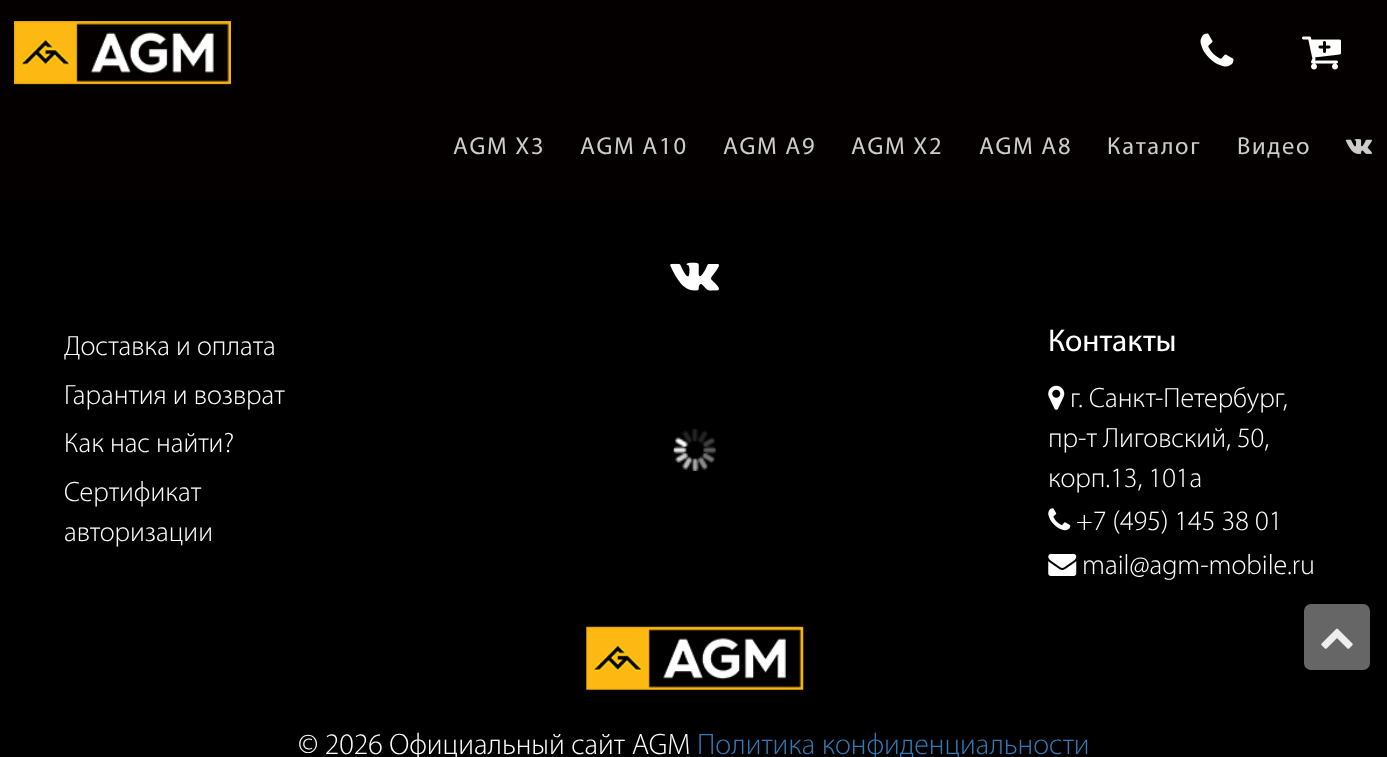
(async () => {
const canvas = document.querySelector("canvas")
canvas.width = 1387
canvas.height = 757
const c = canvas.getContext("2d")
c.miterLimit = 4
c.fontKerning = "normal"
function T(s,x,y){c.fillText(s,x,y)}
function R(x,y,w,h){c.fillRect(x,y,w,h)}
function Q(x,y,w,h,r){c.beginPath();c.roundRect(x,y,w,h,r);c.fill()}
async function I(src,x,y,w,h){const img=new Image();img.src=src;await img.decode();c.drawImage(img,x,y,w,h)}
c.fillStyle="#000"
R(0,0,1387,757)
c.fillStyle="#050000"
R(0,0,1387,201)
await I("1.png",14,21,217,64)
await I("2.png",1200,33,34,34)
await I("3.png",1302,36,39,34)
c.letterSpacing="1.75px"
c.font="24.5px Myriad"
c.fillStyle="#ccc"
T("AGM X3",453,154)
T("AGM A10",580,154)
T("AGM A9",723,154)
T("AGM X2",851,154)
T("AGM A8",979,154)
T("Каталог",1107,154)
T("Видео",1237,154)
await I("4.png",1345,139,27,15)
await I("5.png",670,262,49,29)
c.letterSpacing="0px"
c.font="300 28px Myriad"
c.fillStyle="#fff"
T("Доставка и оплата",64,355)
T("Гарантия и возврат",64,404)
T("Как нас найти?",64,452)
T("Сертификат",64,501)
T("авторизации",64,541)
await I("6.png",673,429,43,42)
c.font="31.5px Myriad"
T("Контакты",1048,351)
await I("7.png",1048,385,17,25)
c.font="300 28px Myriad"
T("г. Санкт-Петербург,",1070,407)
T("пр-т Лиговский, 50,",1048,447)
T("корп.13, 101а",1048,487)
await I("8.png",1048,508,23,23)
T("+7 (495) 145 38 01",1076,530)
await I("9.png",1048,554,29,22)
T("mail@agm-mobile.ru",1082,574)
await I("10.png",586,626,218,64)
c.font="300 29.75px Myriad"
T("© 2026 Официальный сайт AGM",298,754)
c.fillStyle="#337ab7"
T("Политика конфиденциальности",697,754)
c.fillStyle="#666"
Q(1304,604,66,66,7)
await I("11.png",1321,628,32,21)
})()
